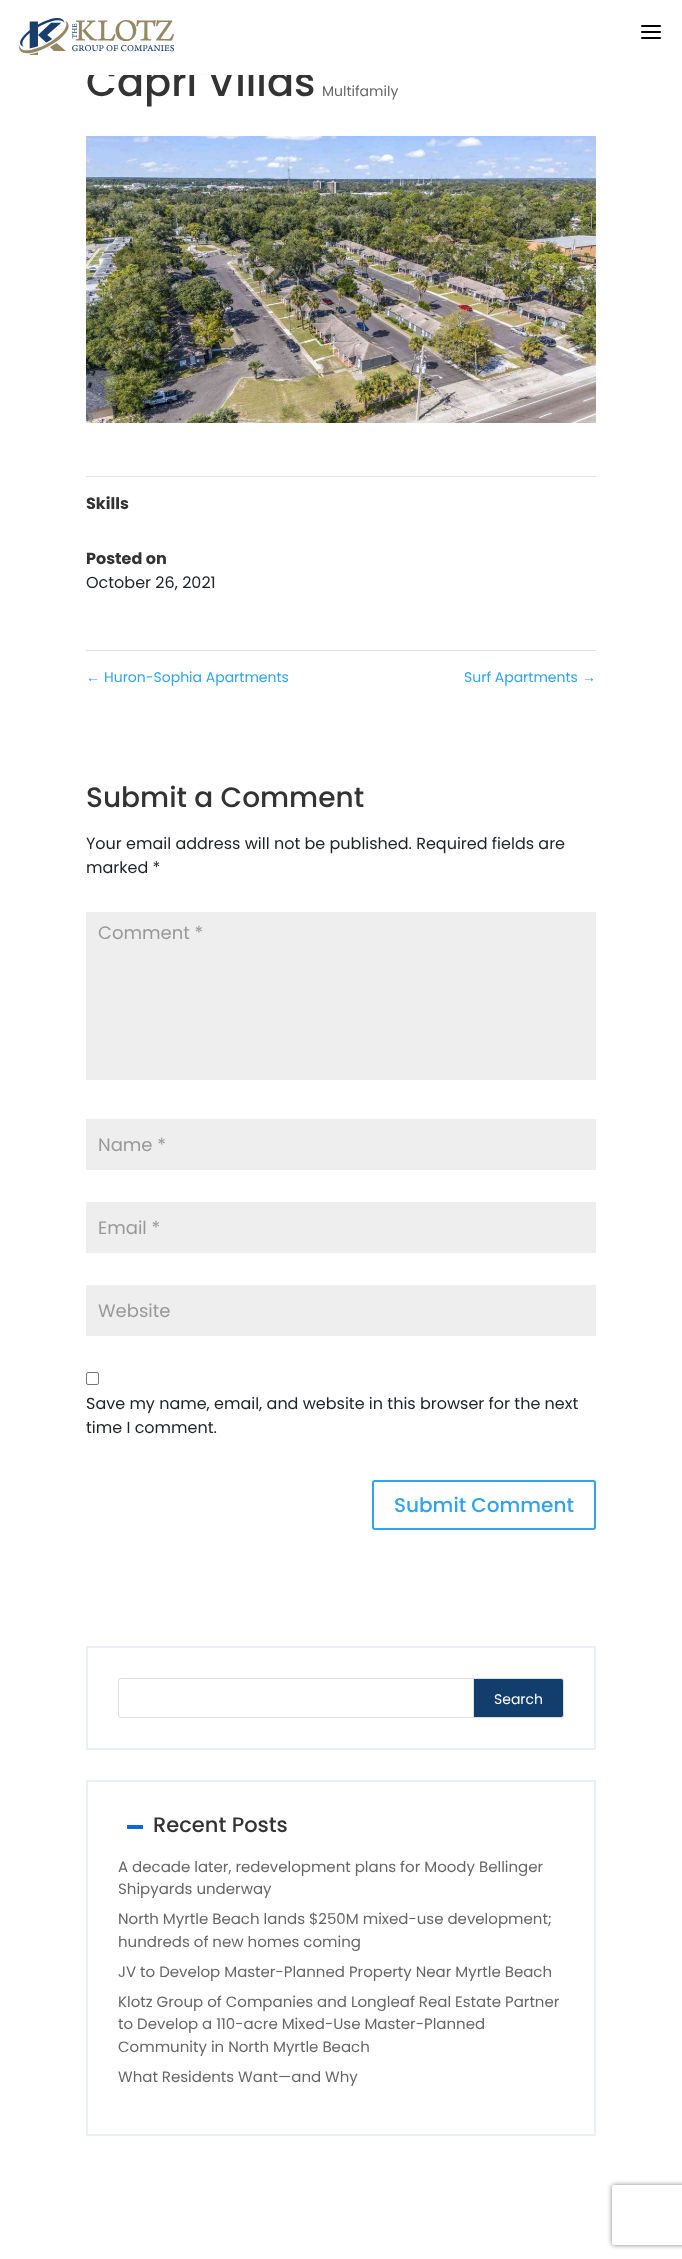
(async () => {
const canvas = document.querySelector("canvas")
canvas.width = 682
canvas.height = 2259
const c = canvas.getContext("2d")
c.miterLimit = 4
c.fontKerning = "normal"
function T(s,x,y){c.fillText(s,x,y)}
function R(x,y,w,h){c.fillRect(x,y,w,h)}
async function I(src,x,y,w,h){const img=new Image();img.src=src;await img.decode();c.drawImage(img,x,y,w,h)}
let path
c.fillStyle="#fff"
R(0,0,682,2259)
c.font="500 40px Poppins"
c.fillStyle="#333"
T("Capri Villas",86,96)
c.fillStyle="#fff"
R(90,65,174,8)
c.fillStyle="#fdfdfd"
R(89,73,221,2)
await I("1.png",19,18,155,37)
await I("2.png",641,25,20,14)
c.font="14px Poppins"
c.fillStyle="#666"
T("Multifamily",322,96)
await I("3.png",86,136,510,287)
c.fillStyle="#e2e2e2"
R(86,476,510,1)
R(86,650,510,1)
c.font="bold 16px Poppins"
c.fillStyle="#333"
T("Skills",86,509)
T("Posted on",86,564)
c.font="16px Poppins"
c.fillStyle="#212529"
T("October 26, 2021",86,588)
c.font="14px Liberation Sans"
c.fillStyle="#2ea3f2"
T("←",86,682)
c.font="14px Poppins"
T("Huron-Sophia Apartments",104,682)
T("Surf Apartments",464,682)
c.font="14px Liberation Sans"
T("→",582,682)
c.font="500 28px Poppins"
c.fillStyle="#333"
T("Submit a Comment",86,807)
c.font="16px Poppins"
c.fillStyle="#212529"
T("Your email address will not be published. Required fields are",86,849)
T("marked *",86,873)
c.fillStyle="#eee"
R(86,912,510,168)
c.font="18px Poppins"
c.fillStyle="#999"
T("Comment *",98,939)
c.fillStyle="#eee"
R(86,1119,510,51)
c.fillStyle="#999"
T("Name *",98,1151)
c.fillStyle="#eee"
R(86,1202,510,51)
c.fillStyle="#999"
T("Email *",98,1234)
c.fillStyle="#eee"
R(86,1285,510,51)
c.fillStyle="#999"
T("Website",98,1317)
c.beginPath()
c.roundRect(86.5,1372.5,12,12,1.5)
c.strokeStyle="#767676"
c.stroke()
c.font="16px Poppins"
c.fillStyle="#212529"
T("Save my name, email, and website in this browser for the next",86,1409)
T("time I comment.",86,1433)
c.beginPath()
c.roundRect(373,1481,222,48,2)
c.strokeStyle="#2ea3f2"
c.lineWidth=2
c.stroke()
c.font="500 20px Poppins"
c.fillStyle="#2ea3f2"
T("Submit Comment",394,1512)
c.strokeStyle="#eaedff"
c.strokeRect(87,1647,508,102)
c.beginPath()
c.roundRect(118.5,1678.5,445,39,2.5)
c.strokeStyle="#ddd"
c.lineWidth=1
c.stroke()
c.fillStyle="#113e6d"
c.beginPath()
c.roundRect(473.5,1678.5,90,39,[0,2.5,2.5,0])
c.fill()
c.stroke()
c.font="14px Poppins"
c.fillStyle="#fff"
T("Search",494,1704)
c.strokeStyle="#eaedff"
c.lineWidth=2
c.strokeRect(87,1781,508,354)
c.fillStyle="#096bd8"
R(127,1825,16,4)
c.font="500 21px Poppins"
c.fillStyle="#333"
T("Recent Posts",153,1832)
c.font="15px Poppins"
c.fillStyle="#666"
T("A decade later, redevelopment plans for Moody Bellinger",118,1872)
T("Shipyards underway",118,1894)
T("North Myrtle Beach lands $250M mixed-use development;",118,1924)
T("hundreds of new homes coming",118,1947)
T("JV to Develop Master-Planned Property Near Myrtle Beach",118,1977)
T("Klotz Group of Companies and Longleaf Real Estate Partner",118,2007)
T("to Develop a 110-acre Mixed-Use Master-Planned",118,2029)
T("Community in North Myrtle Beach",118,2052)
T("What Residents Want—and Why",118,2082)
c.save()
path = new Path2D("M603 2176h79v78h-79zm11 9h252c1 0 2 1 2 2v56c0 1-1 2-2 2h-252c-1 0-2-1-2-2v-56c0-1 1-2 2-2z")
c.clip(path,"evenodd")
c.fillStyle="#808080"
c.filter="blur(2.5px)"
c.beginPath()
c.roundRect(612,2185,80,60,2)
c.fill()
c.filter="none"
c.restore()
})()
